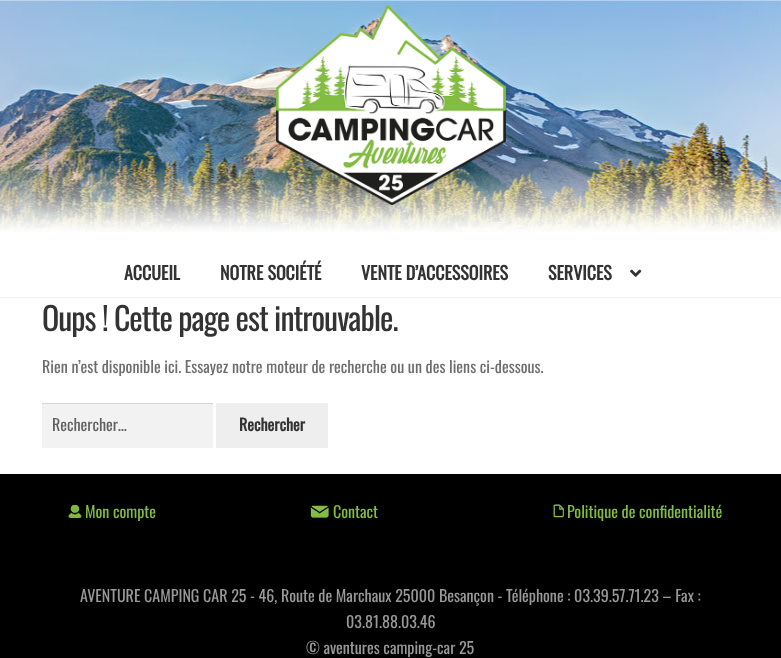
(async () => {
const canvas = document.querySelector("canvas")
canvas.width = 781
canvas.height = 658
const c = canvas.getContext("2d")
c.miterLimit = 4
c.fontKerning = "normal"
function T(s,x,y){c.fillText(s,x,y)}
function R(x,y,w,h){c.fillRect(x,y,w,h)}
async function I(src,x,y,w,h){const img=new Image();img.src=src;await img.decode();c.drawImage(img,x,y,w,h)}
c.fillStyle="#fff"
R(0,0,781,658)
await I("1.png",0,0,781,232)
c.fillStyle="#f0f0f0"
R(0,297,781,1)
await I("2.png",276,5,230,200)
c.font="bold 18px Oswald"
c.fillStyle="#333"
T("ACCUEIL",124,280)
T("NOTRE SOCIÉTÉ",220,280)
T("VENTE D’ACCESSOIRES",361,280)
T("SERVICES",548,280)
await I("3.png",630,269,12,8)
c.letterSpacing="-1px"
c.font="32px Oswald"
T("Oups ! Cette page est introuvable.",42,331)
c.letterSpacing="0px"
c.font="16px Oswald"
c.fillStyle="#6d6d6d"
T("Rien n’est disponible ici. Essayez notre moteur de recherche ou un des liens ci-dessous.",42,373)
c.fillStyle="#f2f2f2"
R(42,404,171,44)
c.fillStyle="#d4d4d4"
R(42,403,171,1)
c.fillStyle="#616161"
T("Rechercher…",52,431)
c.fillStyle="#eee"
R(216,403,112,45)
c.font="bold 16px Oswald"
c.fillStyle="#333"
T("Rechercher",239,431)
c.fillStyle="#000"
R(0,474,781,184)
await I("4.png",68,505,14,13)
c.font="16px Oswald"
c.fillStyle="#82bc41"
T("Mon compte",85,518)
await I("5.png",310,505,19,13)
T("Contact",333,518)
await I("6.png",553,504,11,14)
T("Politique de confidentialité",567,518)
c.fillStyle="#999"
T("AVENTURE CAMPING CAR 25 - 46, Route de Marchaux 25000 Besançon - Téléphone : 03.39.57.71.23 – Fax :",80,602)
T("03.81.88.03.46",346,628)
T("© aventures camping-car 25",306,654)
})()
